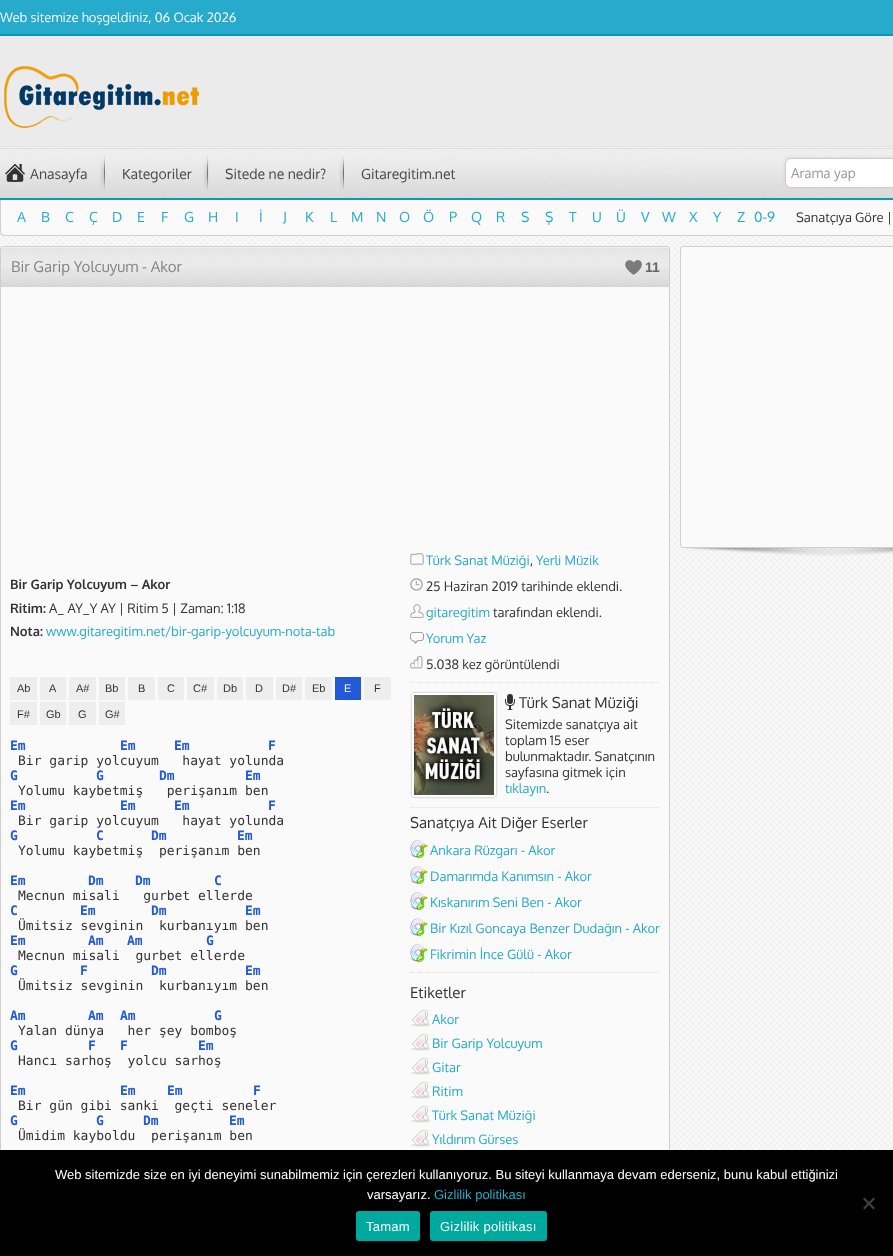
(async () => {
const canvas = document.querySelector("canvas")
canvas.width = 893
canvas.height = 1256
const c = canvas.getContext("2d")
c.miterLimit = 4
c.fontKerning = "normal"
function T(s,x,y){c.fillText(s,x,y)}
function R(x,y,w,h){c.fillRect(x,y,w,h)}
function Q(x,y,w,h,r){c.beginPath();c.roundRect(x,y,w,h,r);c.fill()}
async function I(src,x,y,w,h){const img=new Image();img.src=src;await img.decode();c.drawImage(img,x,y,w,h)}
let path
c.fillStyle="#fff"
R(0,0,893,1256)
await I("1.png",0,231,893,919)
c.fillStyle="#ebebeb"
R(0,36,893,110)
c.fillStyle="#26abcc"
R(0,0,893,34)
c.fillStyle="#0b98bb"
R(0,34,893,2)
c.font="13px Oxygen"
c.fillStyle="#f8f8f8"
T("Web sitemize hoşgeldiniz, 06 Ocak 2026",0,22)
await I("2.png",4,66,195,62)
c.fillStyle="#f1f1f1"
R(0,147,893,51)
await I("3.png",0,148,893,50)
c.fillStyle="#e4e4e4"
R(0,146,893,1)
c.fillStyle="#0b98bb"
R(0,198,893,2)
await I("4.png",5,164,20,18)
c.font="14px Oxygen"
c.fillStyle="#484848"
T("Anasayfa",30,179)
await I("5.png",100,156,5,34)
T("Kategoriler",122,179)
await I("6.png",203,156,6,34)
T("Sitede ne nedir?",225,179)
await I("7.png",339,156,5,34)
T("Gitaregitim.net",361,179)
c.fillStyle="#d6cccc"
c.filter="blur(1.5px)"
c.beginPath()
c.roundRect(785,158,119,30,6)
c.fill()
c.filter="none"
c.fillStyle="#fff"
c.beginPath()
c.roundRect(785.5,158.5,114,29,5.5)
c.fill()
c.strokeStyle="#d6cccc"
c.stroke()
c.font="13.5px Oxygen"
c.fillStyle="#999"
T("Arama yap",791,178)
c.fillStyle="#fafafa"
path = new Path2D("M0 200h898v31c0 3-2 5-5 5h-888c-3 0-5-2-5-5z")
c.fill(path)
c.fillStyle="#cfcfcf"
path = new Path2D("M0 200h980v31c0 3-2 5-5 5h-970c-3 0-5-2-5-5zm1 0h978v31c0 2-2 4-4 4h-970c-2 0-4-2-4-4z")
c.fill(path,"evenodd")
c.font="14px Oxygen"
c.fillStyle="#26abcc"
T("A",17,222)
T("B",41,222)
T("C",65,222)
T("Ç",89,222)
T("D",112,222)
T("E",137,222)
T("F",161,222)
T("G",184,222)
T("H",208,222)
T("I",235,222)
T("İ",259,222)
T("J",283,222)
T("K",305,222)
T("L",330,222)
T("M",351,222)
T("N",376,222)
T("O",399,222)
T("Ö",423,222)
T("P",449,222)
T("Q",471,222)
T("R",496,222)
T("S",521,222)
T("Ş",545,222)
T("T",569,222)
T("U",592,222)
T("Ü",616,222)
T("V",641,222)
T("W",662,222)
T("X",689,222)
T("Y",713,222)
T("Z",737,222)
T("0-9",754,222)
c.font="13px Oxygen"
c.fillStyle="#333"
T("Sanatçıya Göre |",796,222)
c.fillStyle="#fafafa"
c.beginPath()
c.roundRect(.5,246.5,669,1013,2.5)
c.fill()
c.strokeStyle="#cfcfcf"
c.stroke()
await I("8.png",1,247,668,40)
c.font="15px Oxygen"
c.fillStyle="#848484"
T("Bir Garip Yolcuyum - Akor",11,272)
await I("9.png",625,260,17,15)
c.font="bold 14px Liberation Sans"
c.fillStyle="#666"
T("11",645,272)
c.font="bold 13px Oxygen"
c.fillStyle="#333"
T("Bir Garip Yolcuyum – Akor",10,589)
T("Ritim:",10,613)
c.font="13px Oxygen"
T("A_ AY_Y AY | Ritim 5 | Zaman: 1:18",49,613)
c.font="bold 13px Oxygen"
T("Nota:",10,636)
c.font="13px Oxygen"
c.fillStyle="#26abcc"
T("www.gitaregitim.net/bir-garip-yolcuyum-nota-tab",46,636)
c.fillStyle="#eee"
R(10,677,27,23)
c.font="11px Liberation Sans"
c.fillStyle="#333"
T("Ab",17,692)
c.fillStyle="#eee"
R(40,677,26,23)
c.fillStyle="#333"
T("A",49,692)
c.fillStyle="#eee"
R(69,677,27,23)
c.fillStyle="#333"
T("A#",76,692)
c.fillStyle="#eee"
R(99,677,26,23)
c.fillStyle="#333"
T("Bb",105,692)
c.fillStyle="#eee"
R(128,677,27,23)
c.fillStyle="#333"
T("B",138,692)
c.fillStyle="#eee"
R(158,677,26,23)
c.fillStyle="#333"
T("C",167,692)
c.fillStyle="#eee"
R(187,677,27,23)
c.fillStyle="#333"
T("C#",193,692)
c.fillStyle="#eee"
R(217,677,26,23)
c.fillStyle="#333"
T("Db",223,692)
c.fillStyle="#eee"
R(246,677,27,23)
c.fillStyle="#333"
T("D",255,692)
c.fillStyle="#eee"
R(276,677,26,23)
c.fillStyle="#333"
T("D#",282,692)
c.fillStyle="#eee"
R(305,677,27,23)
c.fillStyle="#333"
T("Eb",312,692)
c.fillStyle="#2159d6"
R(335,677,26,23)
c.fillStyle="#fff"
T("E",344,692)
c.fillStyle="#eee"
R(364,677,27,23)
c.fillStyle="#333"
T("F",374,692)
c.fillStyle="#eee"
R(10,702,27,23)
c.fillStyle="#333"
T("F#",17,718)
c.fillStyle="#eee"
R(40,702,26,23)
c.fillStyle="#333"
T("Gb",46,718)
c.fillStyle="#eee"
R(69,702,27,23)
c.fillStyle="#333"
T("G",78,718)
c.fillStyle="#eee"
R(99,702,26,23)
c.fillStyle="#333"
T("G#",105,718)
c.font="bold 13px DejaVu Sans Mono"
c.fillStyle="#2159d6"
T("Em",10,750)
T("Em",120,750)
T("Em",174,750)
T("F",268,750)
c.font="13px DejaVu Sans Mono"
c.fillStyle="#333"
T("Bir garip yolcuyum   hayat yolunda",18,765)
c.font="bold 13px DejaVu Sans Mono"
c.fillStyle="#2159d6"
T("G",10,780)
T("G",96,780)
T("Dm",159,780)
T("Em",245,780)
c.font="13px DejaVu Sans Mono"
c.fillStyle="#333"
T("Yolumu kaybetmiş   perişanım ben",18,795)
c.font="bold 13px DejaVu Sans Mono"
c.fillStyle="#2159d6"
T("Em",10,810)
T("Em",120,810)
T("Em",174,810)
T("F",268,810)
c.font="13px DejaVu Sans Mono"
c.fillStyle="#333"
T("Bir garip yolcuyum   hayat yolunda",18,825)
c.font="bold 13px DejaVu Sans Mono"
c.fillStyle="#2159d6"
T("G",10,840)
T("C",96,840)
T("Dm",151,840)
T("Em",237,840)
c.font="13px DejaVu Sans Mono"
c.fillStyle="#333"
T("Yolumu kaybetmiş  perişanım ben",18,855)
c.font="bold 13px DejaVu Sans Mono"
c.fillStyle="#2159d6"
T("Em",10,885)
T("Dm",88,885)
T("Dm",135,885)
T("C",214,885)
c.font="13px DejaVu Sans Mono"
c.fillStyle="#333"
T("Mecnun misali   gurbet ellerde",18,900)
c.font="bold 13px DejaVu Sans Mono"
c.fillStyle="#2159d6"
T("C",10,915)
T("Em",80,915)
T("Dm",151,915)
T("Em",245,915)
c.font="13px DejaVu Sans Mono"
c.fillStyle="#333"
T("Ümitsiz sevginin  kurbanıyım ben",18,930)
c.font="bold 13px DejaVu Sans Mono"
c.fillStyle="#2159d6"
T("Em",10,945)
T("Am",88,945)
T("Am",127,945)
T("G",206,945)
c.font="13px DejaVu Sans Mono"
c.fillStyle="#333"
T("Mecnun misali  gurbet ellerde",18,960)
c.font="bold 13px DejaVu Sans Mono"
c.fillStyle="#2159d6"
T("G",10,975)
T("F",80,975)
T("Dm",151,975)
T("Em",245,975)
c.font="13px DejaVu Sans Mono"
c.fillStyle="#333"
T("Ümitsiz sevginin  kurbanıyım ben",18,990)
c.font="bold 13px DejaVu Sans Mono"
c.fillStyle="#2159d6"
T("Am",10,1020)
T("Am",88,1020)
T("Am",120,1020)
T("G",214,1020)
c.font="13px DejaVu Sans Mono"
c.fillStyle="#333"
T("Yalan dünya   her şey bomboş",18,1035)
c.font="bold 13px DejaVu Sans Mono"
c.fillStyle="#2159d6"
T("G",10,1050)
T("F",88,1050)
T("F",120,1050)
T("Em",198,1050)
c.font="13px DejaVu Sans Mono"
c.fillStyle="#333"
T("Hancı sarhoş  yolcu sarhoş",18,1065)
c.font="bold 13px DejaVu Sans Mono"
c.fillStyle="#2159d6"
T("Em",10,1095)
T("Em",120,1095)
T("Em",167,1095)
T("F",253,1095)
c.font="13px DejaVu Sans Mono"
c.fillStyle="#333"
T("Bir gün gibi sanki  geçti seneler",18,1110)
c.font="bold 13px DejaVu Sans Mono"
c.fillStyle="#2159d6"
T("G",10,1125)
T("G",96,1125)
T("Dm",143,1125)
T("Em",229,1125)
c.font="13px DejaVu Sans Mono"
c.fillStyle="#333"
T("Ümidim kayboldu  perişanım ben",18,1140)
path = new Path2D("M410 682.5h250")
c.strokeStyle="#ddd"
c.setLineDash([1,1])
c.stroke(path)
await I("10.png",410,553,14,12)
c.font="13px Oxygen"
c.fillStyle="#26abcc"
T("Türk Sanat Müziği",426,565)
c.fillStyle="#333"
T(",",530,565)
c.fillStyle="#26abcc"
T("Yerli Müzik",536,565)
await I("11.png",410,578,13,13)
c.fillStyle="#333"
T("25 Haziran 2019 tarihinde eklendi.",426,591)
await I("12.png",410,604,14,14)
c.fillStyle="#26abcc"
T("gitaregitim",426,617)
c.fillStyle="#333"
T("tarafından eklendi.",493,617)
await I("13.png",410,632,14,12)
c.fillStyle="#26abcc"
T("Yorum Yaz",426,643)
await I("14.png",410,656,13,13)
c.fillStyle="#333"
T("5.038 kez görüntülendi",426,669)
path = new Path2D("M410 807.5h250")
c.stroke(path)
c.fillStyle="#aaa"
c.filter="blur(1px)"
c.beginPath()
c.roundRect(412,693,84,104,2)
c.fill()
c.filter="none"
c.fillStyle="#fff"
Q(412,693,84,104,2)
await I("15.png",414,695,80,100)
await I("16.png",505,694,10,16)
c.font="15px Oxygen"
c.fillStyle="#333"
T("Türk Sanat Müziği",519,708)
c.font="13px Oxygen"
T("Sitemizde sanatçıya ait",505,729)
T("toplam 15 eser",505,745)
T("bulunmaktadır. Sanatçının",505,761)
T("sayfasına gitmek için",505,777)
c.fillStyle="#26abcc"
T("tıklayın",505,793)
c.fillStyle="#333"
T(".",546,793)
path = new Path2D("M410 972.5h250")
c.stroke(path)
c.font="15px Oxygen"
T("Sanatçıya Ait Diğer Eserler",410,828)
await I("17.png",410,840,18,18)
c.font="13px Oxygen"
c.fillStyle="#26abcc"
T("Ankara Rüzgarı - Akor",430,855)
await I("17.png",410,866,18,18)
T("Damarımda Kanımsın - Akor",430,881)
await I("17.png",410,892,18,18)
T("Kıskanırım Seni Ben - Akor",430,907)
await I("17.png",410,918,18,18)
T("Bir Kızıl Goncaya Benzer Dudağın - Akor",430,933)
await I("17.png",410,944,18,18)
T("Fikrimin İnce Gülü - Akor",430,959)
c.font="15px Oxygen"
c.fillStyle="#333"
T("Etiketler",410,998)
await I("18.png",411,1010,20,17)
c.font="13px Oxygen"
c.fillStyle="#26abcc"
T("Akor",432,1024)
await I("18.png",411,1034,20,17)
T("Bir Garip Yolcuyum",432,1048)
await I("18.png",411,1058,20,17)
T("Gitar",432,1072)
await I("18.png",411,1082,20,17)
T("Ritim",432,1096)
await I("18.png",411,1106,20,17)
T("Türk Sanat Müziği",432,1120)
await I("18.png",411,1130,20,17)
T("Yıldırım Gürses",432,1144)
await I("19.png",680,246,213,310)
c.fillStyle="#fafafa"
c.beginPath()
c.roundRect(680.5,246.5,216,301,2.5)
c.fill()
c.strokeStyle="#cfcfcf"
c.setLineDash([])
c.stroke()
c.fillStyle="#000"
R(0,1150,893,106)
c.font="13px Liberation Sans"
c.fillStyle="#fff"
T("Web sitemizde size en iyi deneyimi sunabilmemiz için çerezleri kullanıyoruz. Bu siteyi kullanmaya devam ederseniz, bunu kabul ettiğinizi",55,1179)
T("varsayarız.",367,1199)
c.fillStyle="#26abcc"
T("Gizlilik politikası",434,1199)
c.fillStyle="#404040"
path = new Path2D("M873.5 1197.5l1.5 1.5l-10.5 10.5l-1.5-1.5z")
c.fill(path)
path = new Path2D("M863 1199l1.5-1.5l10.5 10.5l-1.5 1.5z")
c.fill(path)
c.fillStyle="#00a99d"
Q(356,1211,64,30,3)
c.letterSpacing="0.25px"
c.fillStyle="#fff"
T("Tamam",366,1231)
c.fillStyle="#00a99d"
Q(430,1211,117,30,3)
c.fillStyle="#fff"
T("Gizlilik politikası",440,1231)
})()
